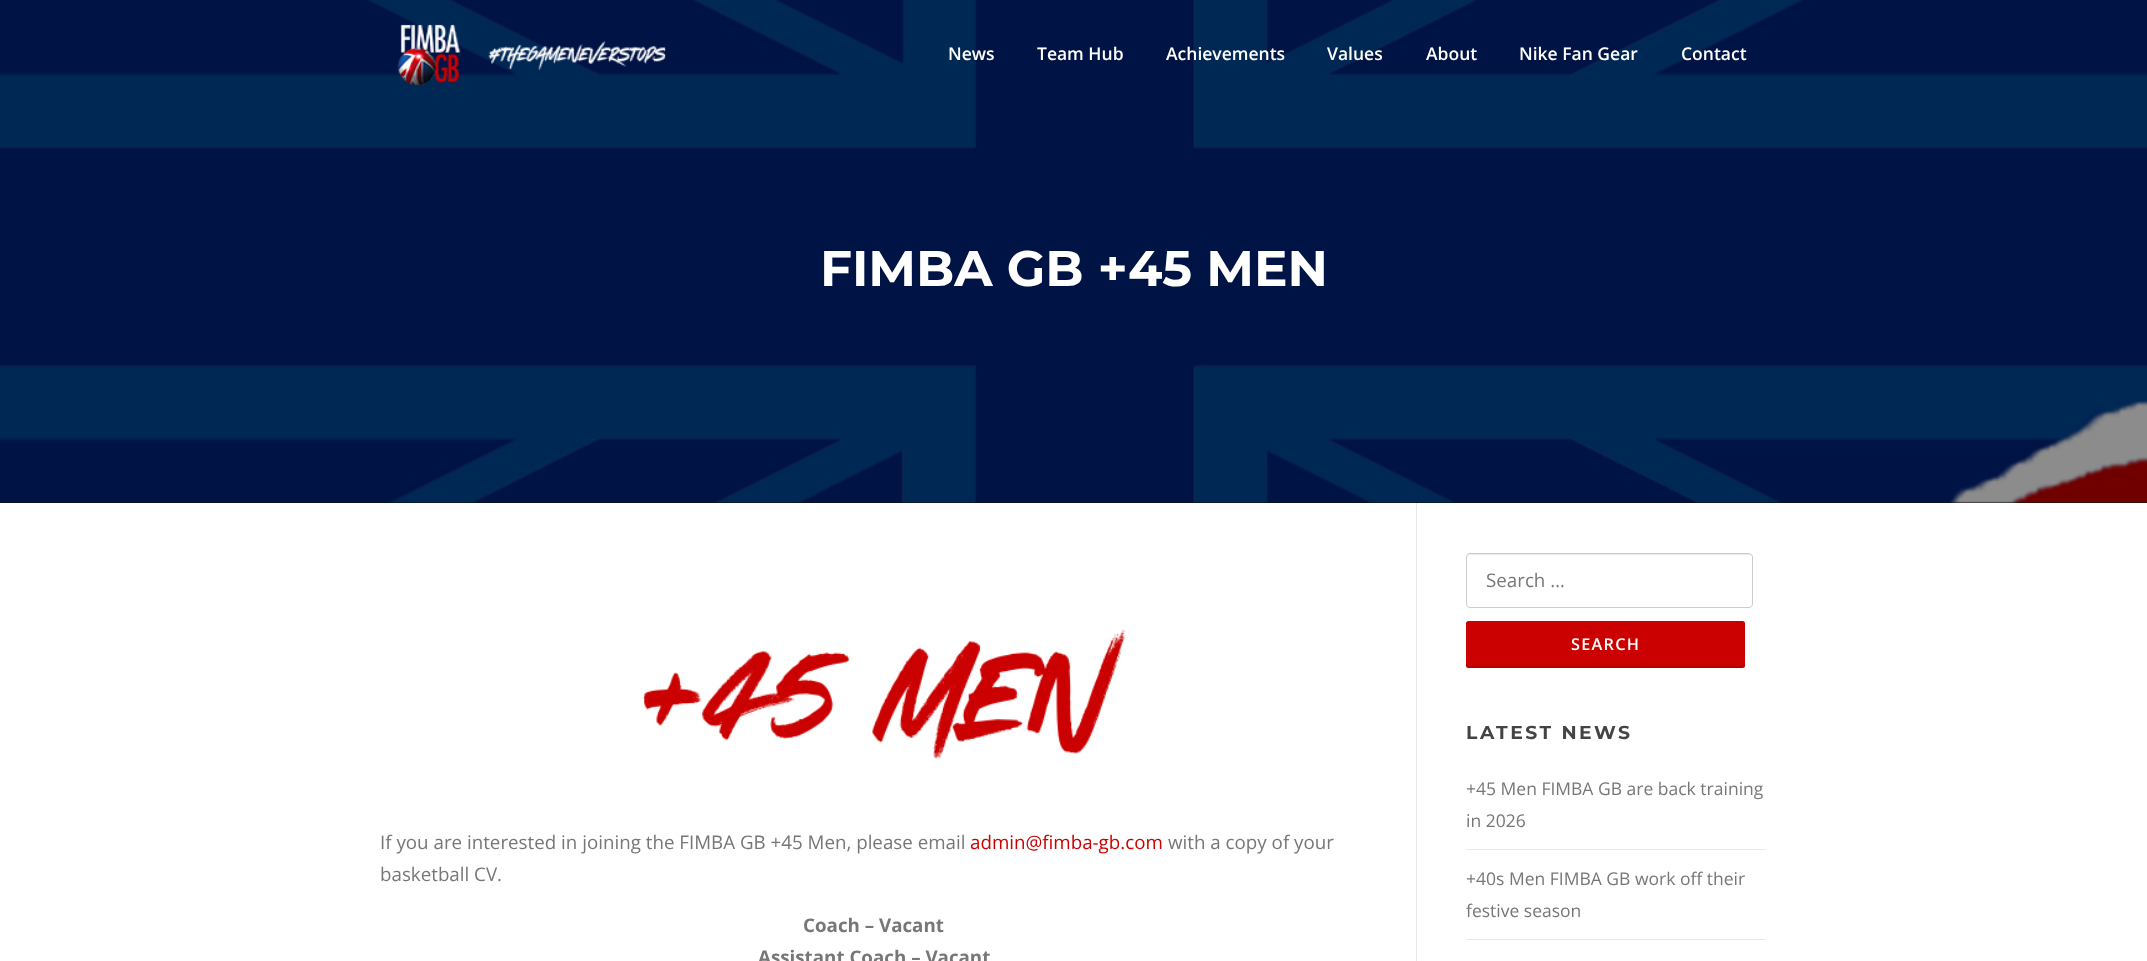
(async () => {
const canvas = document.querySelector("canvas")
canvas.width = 2147
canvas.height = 961
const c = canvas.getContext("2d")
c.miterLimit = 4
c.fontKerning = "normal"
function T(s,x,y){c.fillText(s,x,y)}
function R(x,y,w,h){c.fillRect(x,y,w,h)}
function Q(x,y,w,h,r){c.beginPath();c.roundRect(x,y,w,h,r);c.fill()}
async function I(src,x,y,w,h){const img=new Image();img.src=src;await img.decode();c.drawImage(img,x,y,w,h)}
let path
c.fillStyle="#fff"
R(0,0,2147,961)
c.fillStyle="#131313"
R(0,501,2147,2)
await I("2.png",0,0,2147,503)
await I("1.png",397,24,269,62)
c.font="600 17.5px Open Sans"
c.fillStyle="#fff"
T("News",948,60)
T("Team Hub",1037,60)
T("Achievements",1166,60)
T("Values",1327,60)
T("About",1426,60)
T("Nike Fan Gear",1519,60)
T("Contact",1681,60)
c.font="bold 50px Montserrat"
T("FIMBA GB +45 MEN",820,286)
c.fillStyle="#e9e9e9"
R(1416,503,1,458)
await I("3.png",642,629,484,130)
c.font="18.75px Open Sans"
c.fillStyle="#777"
T("If you are interested in joining the FIMBA GB +45 Men, please email",380,849)
c.fillStyle="#cb0000"
T("admin@fimba-gb.com",970,849)
c.fillStyle="#777"
T("with a copy of your",1168,849)
T("basketball CV.",380,881)
c.font="bold 18.75px Open Sans"
T("Coach – Vacant",803,932)
T("Assistant Coach – Vacant",758,964)
c.fillStyle="#ebebeb"
path = new Path2D("M1470 555h279l2 1v2v-2c0-1-1-2-3-2h-278c-1 0-2 1-2 2v2c0-2 1-3 2-3z")
c.fill(path)
c.beginPath()
c.roundRect(1466.5,553.5,286,54,3.5)
c.strokeStyle="#ccc"
c.stroke()
c.font="18.75px Open Sans"
c.fillStyle="#777"
T("Search …",1486,587)
c.fillStyle="#cb0000"
Q(1466,621,279,47,2.5)
c.fillStyle="#0000001a"
path = new Path2D("M1466 664v2c0 1 1 2 2 2h274c2 0 3-1 3-2v-2c0 1-1 2-3 2h-273c-2 0-3-1-3-2z")
c.fill(path)
c.letterSpacing="1.25px"
c.font="600 16.25px Open Sans"
c.fillStyle="#fff"
T("SEARCH",1571,650)
c.letterSpacing="2.5px"
c.font="bold 18.75px Montserrat"
c.fillStyle="#444"
T("LATEST NEWS",1466,739)
c.fillStyle="#e9e9e9"
R(1466,849,300,1)
c.letterSpacing="0px"
c.font="17.5px Open Sans"
c.fillStyle="#777"
T("+45 Men FIMBA GB are back training",1466,795)
T("in 2026",1466,827)
c.fillStyle="#e9e9e9"
R(1466,939,300,1)
c.fillStyle="#777"
T("+40s Men FIMBA GB work off their",1466,885)
T("festive season",1466,917)
})()
